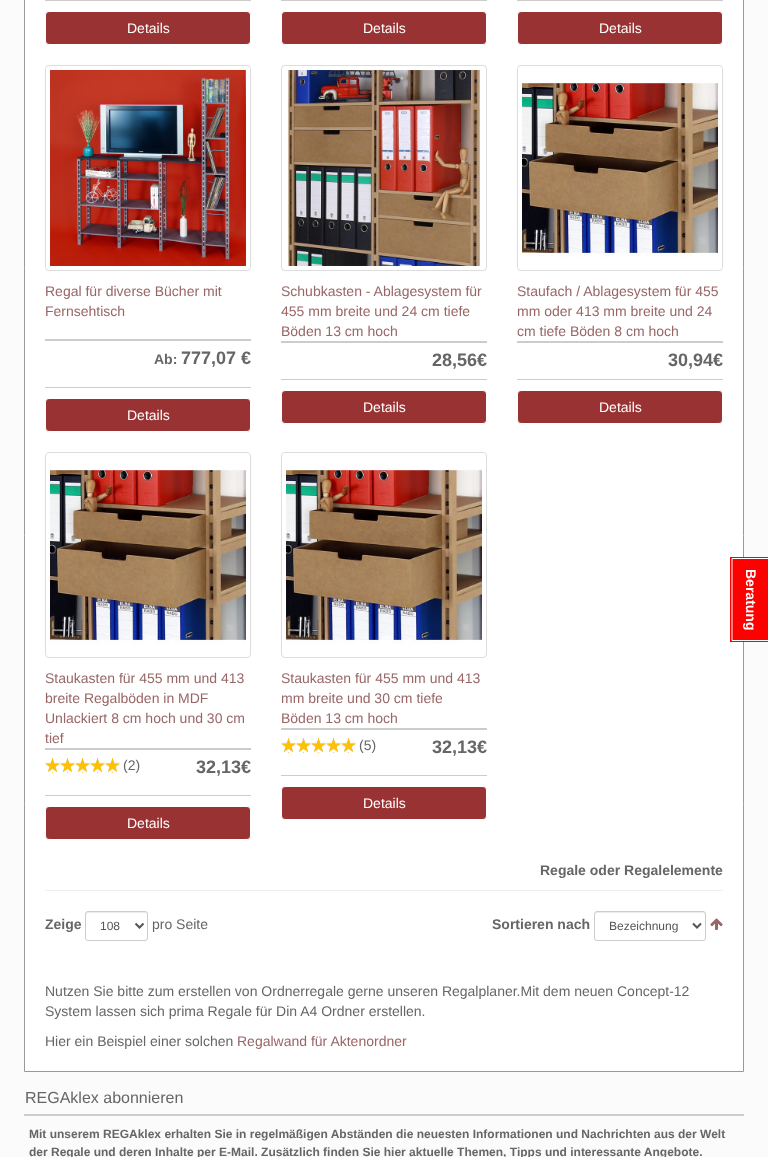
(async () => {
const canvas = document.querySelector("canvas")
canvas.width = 768
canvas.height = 1157
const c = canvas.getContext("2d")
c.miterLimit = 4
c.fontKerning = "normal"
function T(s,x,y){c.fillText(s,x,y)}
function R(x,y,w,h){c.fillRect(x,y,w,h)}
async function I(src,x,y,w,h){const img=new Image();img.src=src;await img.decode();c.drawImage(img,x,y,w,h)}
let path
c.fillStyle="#fbfbfb"
R(0,0,768,1157)
c.fillStyle="#fff"
c.beginPath()
c.rect(24.5,-.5,719,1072)
c.fill()
c.strokeStyle="#999"
c.stroke()
c.fillStyle="#ccc"
R(45,0,206,1)
c.fillStyle="#933"
c.beginPath()
c.roundRect(45.5,11.5,205,33,3.5)
c.fill()
c.strokeStyle="#fff"
c.stroke()
c.font="14px Liberation Sans"
c.fillStyle="#fff"
T("Details",127,33)
c.fillStyle="#ccc"
R(281,0,206,1)
c.fillStyle="#933"
c.beginPath()
c.roundRect(281.5,11.5,205,33,3.5)
c.fill()
c.stroke()
c.fillStyle="#fff"
T("Details",363,33)
c.fillStyle="#ccc"
R(517,0,206,1)
c.fillStyle="#933"
c.beginPath()
c.roundRect(517.5,11.5,205,33,3.5)
c.fill()
c.stroke()
c.fillStyle="#fff"
T("Details",599,33)
c.beginPath()
c.roundRect(45.5,65.5,205,205,3.5)
c.strokeStyle="#ddd"
c.stroke()
await I("1.png",50,70,196,196)
c.fillStyle="#ccc"
R(45,339,206,2)
c.fillStyle="#966"
T("Regal für diverse Bücher mit",45,296)
T("Fernsehtisch",45,316)
c.fillStyle="#ccc"
R(45,387,206,1)
c.font="bold 14px Liberation Sans"
c.fillStyle="#666"
T("Ab:",154,364)
c.font="bold 18px Liberation Sans"
T("777,07 €",181,364)
c.fillStyle="#933"
c.beginPath()
c.roundRect(45.5,398.5,205,33,3.5)
c.fill()
c.strokeStyle="#fff"
c.stroke()
c.font="14px Liberation Sans"
c.fillStyle="#fff"
T("Details",127,420)
c.beginPath()
c.roundRect(281.5,65.5,205,205,3.5)
c.strokeStyle="#ddd"
c.stroke()
await I("2.png",286,70,194,196)
c.fillStyle="#ccc"
R(281,341,206,2)
c.fillStyle="#966"
T("Schubkasten - Ablagesystem für",281,296)
T("455 mm breite und 24 cm tiefe",281,316)
T("Böden 13 cm hoch",281,336)
c.fillStyle="#ccc"
R(281,379,206,1)
c.font="bold 18px Liberation Sans"
c.fillStyle="#666"
T("28,56€",432,366)
c.fillStyle="#933"
c.beginPath()
c.roundRect(281.5,390.5,205,33,3.5)
c.fill()
c.strokeStyle="#fff"
c.stroke()
c.font="14px Liberation Sans"
c.fillStyle="#fff"
T("Details",363,412)
c.beginPath()
c.roundRect(517.5,65.5,205,205,3.5)
c.strokeStyle="#ddd"
c.stroke()
await I("3.png",522,82,196,175)
c.fillStyle="#ccc"
R(517,341,206,2)
c.fillStyle="#966"
T("Staufach / Ablagesystem für 455",517,296)
T("mm oder 413 mm breite und 24",517,316)
T("cm tiefe Böden 8 cm hoch",517,336)
c.fillStyle="#ccc"
R(517,379,206,1)
c.font="bold 18px Liberation Sans"
c.fillStyle="#666"
T("30,94€",668,366)
c.fillStyle="#933"
c.beginPath()
c.roundRect(517.5,390.5,205,33,3.5)
c.fill()
c.strokeStyle="#fff"
c.stroke()
c.font="14px Liberation Sans"
c.fillStyle="#fff"
T("Details",599,412)
c.beginPath()
c.roundRect(45.5,452.5,205,205,3.5)
c.strokeStyle="#ddd"
c.stroke()
await I("4.png",50,469,196,175)
c.fillStyle="#ccc"
R(45,748,206,2)
c.fillStyle="#966"
T("Staukasten für 455 mm und 413",45,683)
T("breite Regalböden in MDF",45,703)
T("Unlackiert 8 cm hoch und 30 cm",45,723)
T("tief",45,743)
await I("5.png",45,758,75,15)
await I("6.png",45,758,75,15)
c.fillStyle="#666"
T("(2)",123,770)
c.fillStyle="#ccc"
R(45,795,206,1)
c.font="bold 18px Liberation Sans"
c.fillStyle="#666"
T("32,13€",196,773)
c.fillStyle="#933"
c.beginPath()
c.roundRect(45.5,806.5,205,33,3.5)
c.fill()
c.strokeStyle="#fff"
c.stroke()
c.font="14px Liberation Sans"
c.fillStyle="#fff"
T("Details",127,828)
c.beginPath()
c.roundRect(281.5,452.5,205,205,3.5)
c.strokeStyle="#ddd"
c.stroke()
await I("3.png",286,469,196,175)
c.fillStyle="#ccc"
R(281,728,206,2)
c.fillStyle="#966"
T("Staukasten für 455 mm und 413",281,683)
T("mm breite und 30 cm tiefe",281,703)
T("Böden 13 cm hoch",281,723)
await I("5.png",281,738,75,15)
await I("6.png",281,738,75,15)
c.fillStyle="#666"
T("(5)",359,750)
c.fillStyle="#ccc"
R(281,775,206,1)
c.font="bold 18px Liberation Sans"
c.fillStyle="#666"
T("32,13€",432,753)
c.fillStyle="#933"
c.beginPath()
c.roundRect(281.5,786.5,205,33,3.5)
c.fill()
c.strokeStyle="#fff"
c.stroke()
c.font="14px Liberation Sans"
c.fillStyle="#fff"
T("Details",363,808)
c.font="bold 14px Liberation Sans"
c.fillStyle="#666"
T("Regale oder Regalelemente",540,875)
c.fillStyle="#eee"
R(45,890,678,1)
c.fillStyle="#666"
T("Zeige",45,929)
c.fillStyle="#ececec"
path = new Path2D("M88 913h57c1 0 2 1 2 2c0-6-8-3-11-3h-38c-4 0-12-3-12 3c0-1 1-2 2-2z")
c.fill(path)
c.beginPath()
c.roundRect(85.5,911.5,62,29,2.5)
c.strokeStyle="#ccc"
c.stroke()
path = new Path2D("M135.5 923.5l4 4l4-4")
c.strokeStyle="#555"
c.lineWidth=2
c.stroke(path)
c.font="12px Liberation Sans"
c.fillStyle="#555"
T("108",100,930)
c.font="14px Liberation Sans"
c.fillStyle="#666"
T("pro Seite",152,929)
c.font="bold 14px Liberation Sans"
T("Sortieren nach",492,929)
c.fillStyle="#ececec"
path = new Path2D("M597 913h106c1 0 2 1 2 2c0-1 0-3-2-3h-106c-2 0-2 2-2 3c0-1 1-2 2-2z")
c.fill(path)
c.beginPath()
c.roundRect(594.5,911.5,111,29,2.5)
c.strokeStyle="#ccc"
c.lineWidth=1
c.stroke()
path = new Path2D("M693 923.5l4 4l4-4")
c.strokeStyle="#555"
c.lineWidth=2
c.stroke(path)
c.font="12px Liberation Sans"
c.fillStyle="#555"
T("Bezeichnung",609,930)
await I("7.png",710,918,13,12)
c.font="14px Liberation Sans"
c.fillStyle="#666"
T("Nutzen Sie bitte zum erstellen von Ordnerregale gerne unseren Regalplaner.Mit dem neuen Concept-12",45,996)
T("System lassen sich prima Regale für Din A4 Ordner erstellen.",45,1016)
T("Hier ein Beispiel einer solchen",45,1046)
c.fillStyle="#966"
T("Regalwand für Aktenordner",237,1046)
c.fillStyle="#f00"
R(730,557,38,85)
path = new Path2D("M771 558.5v82h-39v-82z")
c.strokeStyle="#fff"
c.lineWidth=1
c.stroke(path)
c.font="bold 14px Liberation Sans"
c.fillStyle="#fff"
c.save()
c.translate(746,569)
c.rotate(90 * Math.PI / 180)
c.fillText("Beratung",0,0)
c.restore()
c.fillStyle="#ccc"
R(24,1114,720,2)
c.font="16px Liberation Sans"
c.fillStyle="#666"
T("REGAklex abonnieren",25,1103)
c.font="bold 12px Liberation Sans"
T("Mit unserem REGAklex erhalten Sie in regelmäßigen Abständen die neuesten Informationen und Nachrichten aus der Welt",29,1138)
T("der Regale und deren Inhalte per E-Mail. Zusätzlich finden Sie hier aktuelle Themen, Tipps und interessante Angebote.",29,1156)
})()
